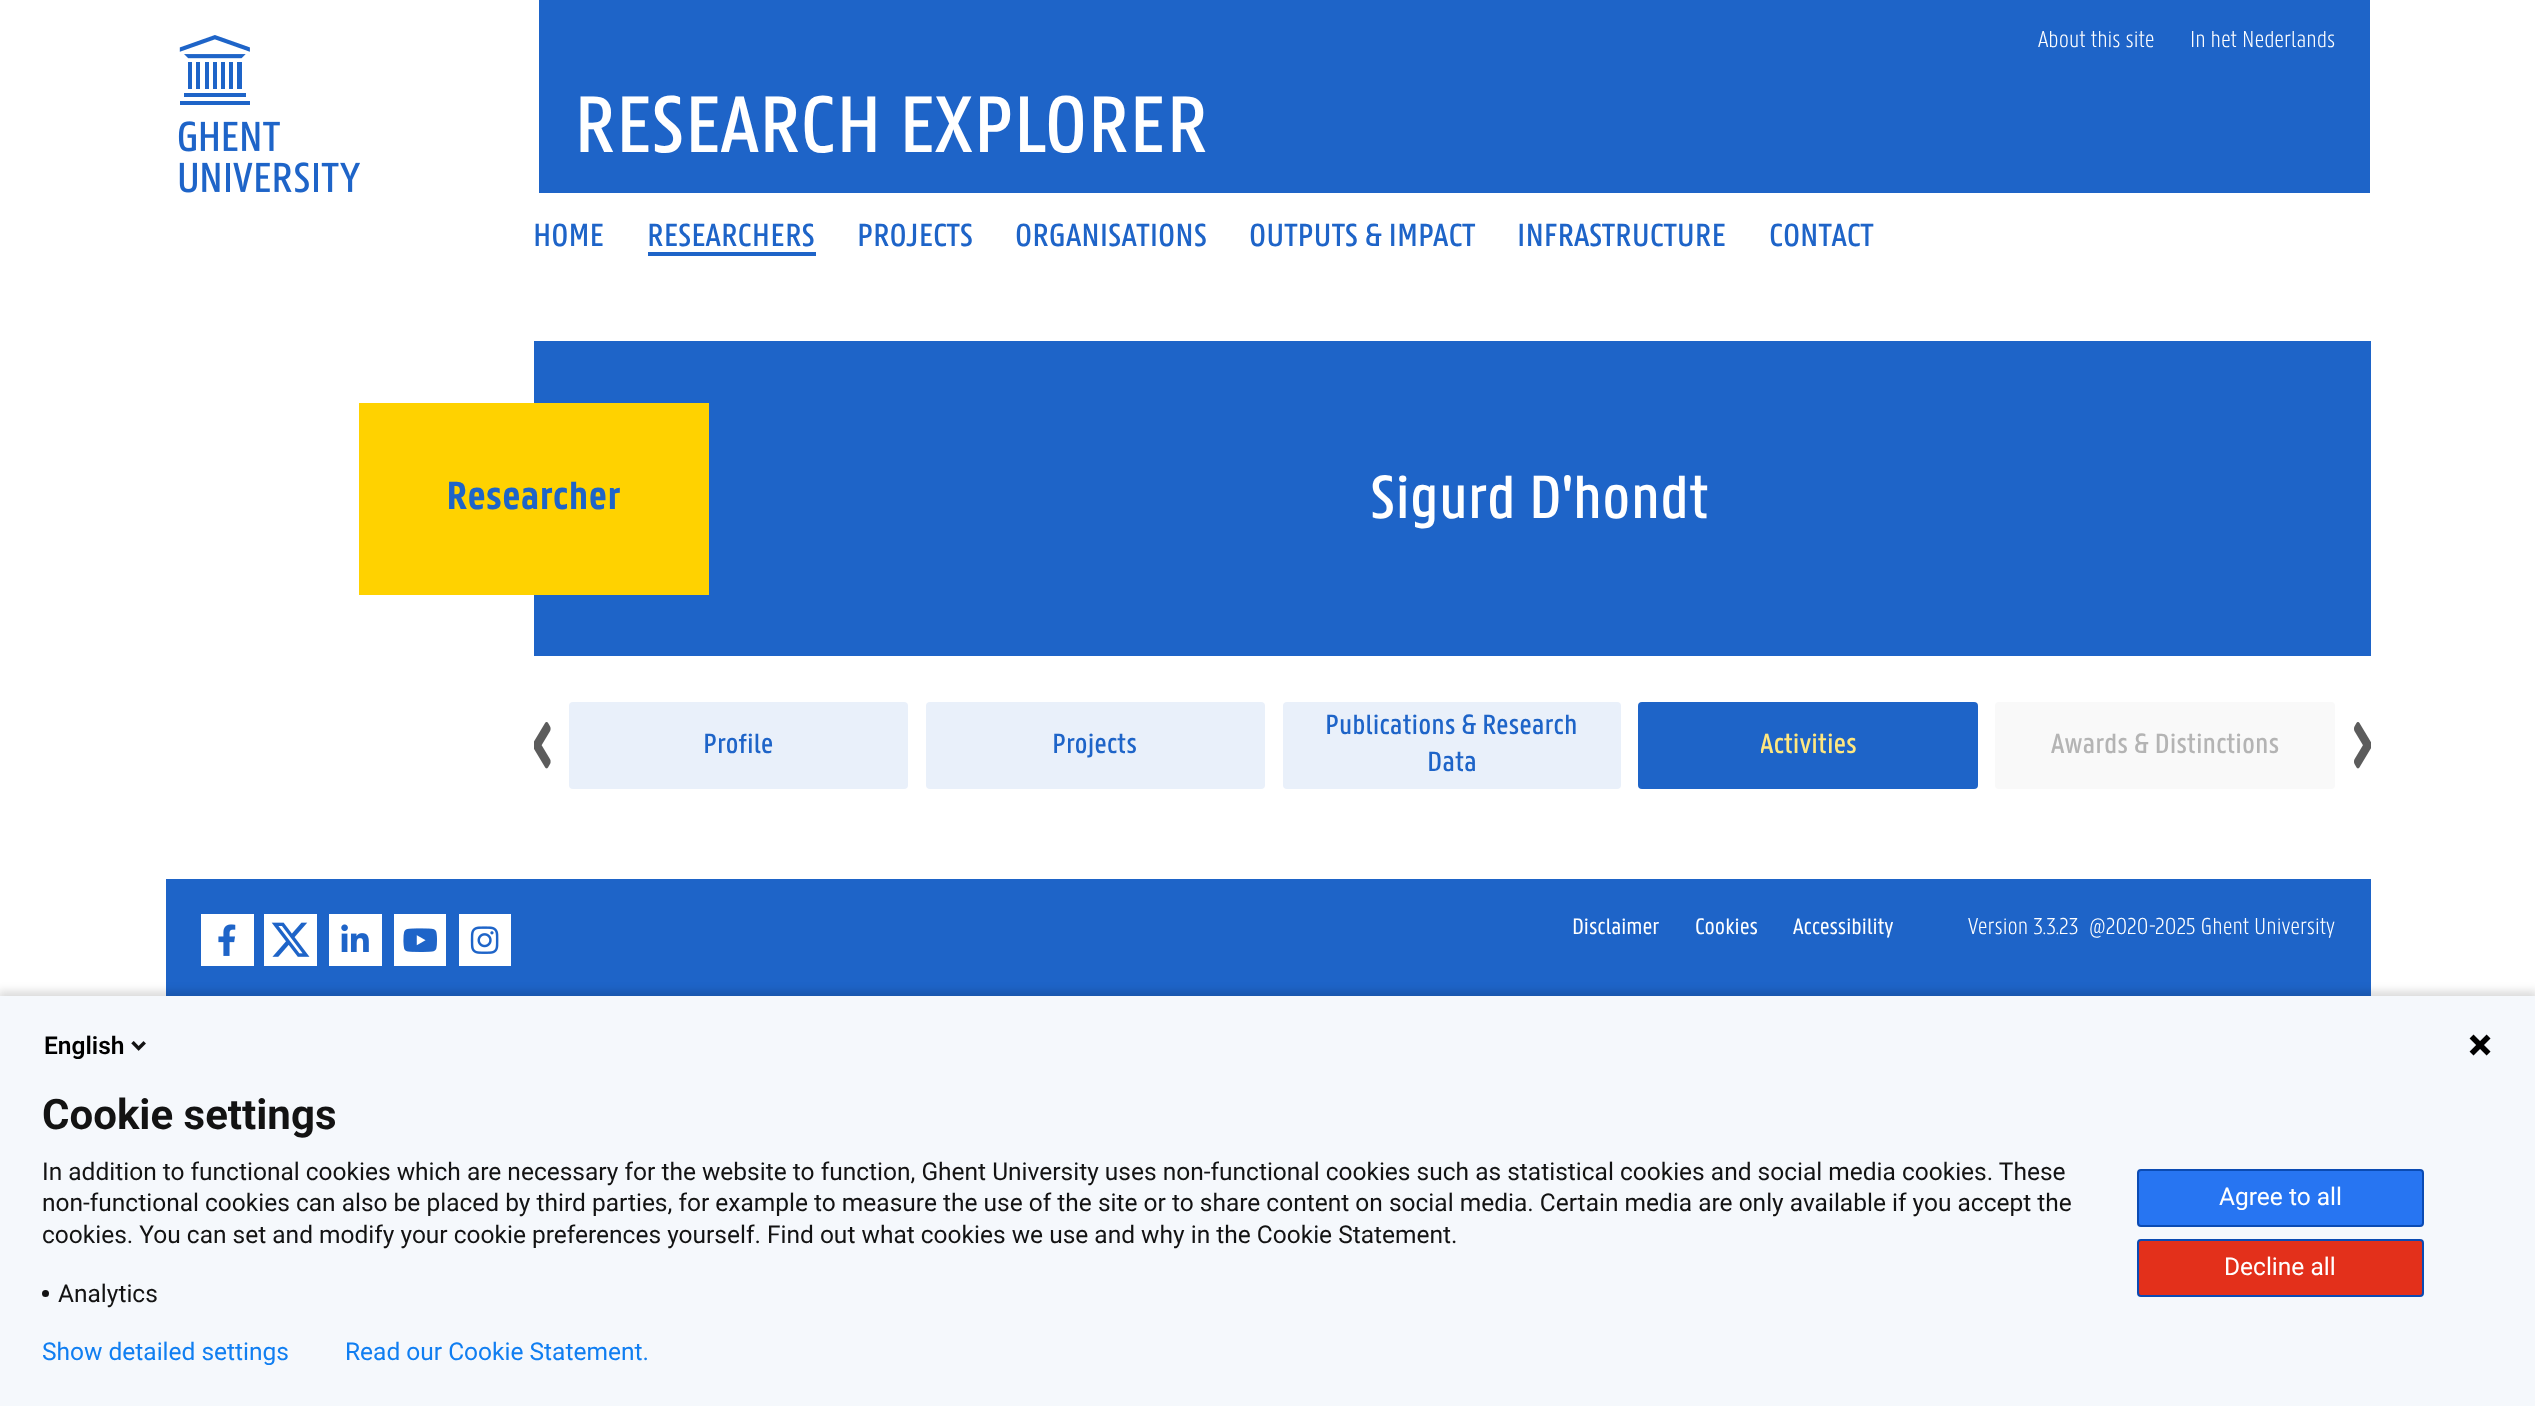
(async () => {
const canvas = document.querySelector("canvas")
canvas.width = 2535
canvas.height = 1406
const c = canvas.getContext("2d")
c.miterLimit = 4
c.fontKerning = "normal"
function T(s,x,y){c.fillText(s,x,y)}
function R(x,y,w,h){c.fillRect(x,y,w,h)}
function Q(x,y,w,h,r){c.beginPath();c.roundRect(x,y,w,h,r);c.fill()}
async function I(src,x,y,w,h){const img=new Image();img.src=src;await img.decode();c.drawImage(img,x,y,w,h)}
c.fillStyle="#fff"
R(0,0,2535,1406)
await I("1.png",178,35,182,158)
c.fillStyle="#1e64c8"
R(539,0,1831,193)
c.font="300 24.5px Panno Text"
c.fillStyle="#fff"
T("About this site",2038,47)
T("In het Nederlands",2190,47)
c.font="500 35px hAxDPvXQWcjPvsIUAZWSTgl"
c.fillStyle="#1e64c8"
T("HOME",533,246)
R(648,252,168,4)
T("RESEARCHERS",647,246)
T("PROJECTS",857,246)
T("ORGANISATIONS",1015,246)
T("OUTPUTS & IMPACT",1249,246)
T("INFRASTRUCTURE",1517,246)
T("CONTACT",1769,246)
c.font="500 87.5px hAxDPvXQWcjPvsIUAZWSTgl"
c.fillStyle="#fff"
T("RESEARCH EXPLORER",574,152)
c.fillStyle="#1e64c8"
R(534,341,1837,315)
c.fillStyle="#ffd200"
R(359,403,350,192)
c.font="bold 42px Panno Text"
c.fillStyle="#1e64c8"
T("Researcher",446,509)
c.font="500 66.5px hAxDPvXQWcjPvsIUAZWSTgl"
c.fillStyle="#fff"
T("Sigurd D'hondt",1370,518)
c.fillStyle="#e9f0fa"
Q(569,702,339,87,4)
c.font="500 29.75px Panno Text"
c.fillStyle="#1e64c8"
T("Profile",703,753)
c.fillStyle="#e9f0fa"
Q(926,702,339,87,4)
c.fillStyle="#1e64c8"
T("Projects",1052,753)
c.fillStyle="#e9f0fa"
Q(1283,702,338,87,4)
c.fillStyle="#1e64c8"
T("Publications & Research",1325,734)
T("Data",1427,771)
Q(1638,702,340,87,4)
c.save()
c.beginPath()
c.rect(1761,726,96,37)
c.clip()
c.fillStyle="#ffe77f"
T("Activities",1760,753)
c.restore()
c.fillStyle="#f9f9f9"
Q(1995,702,340,87,4)
c.fillStyle="#b4b4b4"
T("Awards & Distinctions",2051,753)
await I("2.png",534,722,17,47)
await I("3.png",2354,722,17,47)
c.fillStyle="#1e64c8"
R(166,879,2205,117)
c.fillStyle="#fff"
R(201,914,53,52)
await I("4.png",218,924,18,32)
R(264,914,53,52)
await I("5.png",271,922,39,35)
R(329,914,53,52)
await I("6.png",341,924,28,28)
R(394,914,52,52)
await I("7.png",403,928,34,24)
R(459,914,52,52)
await I("8.png",470,926,29,28)
c.font="24.5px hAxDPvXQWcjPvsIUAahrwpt"
T("Disclaimer",1572,934)
T("Cookies",1695,934)
T("Accessibility",1793,934)
c.font="300 24.5px Panno Text"
T("Version 3.3.23",1968,934)
T("@2020-",2089,934)
T("2025 Ghent University",2155,934)
c.fillStyle="#00000024"
c.filter="blur(4.5px)"
c.beginPath()
c.rect(-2,991,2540,414)
c.fill()
c.filter="none"
c.fillStyle="#f5f8fc"
R(0,996,2535,410)
c.font="600 24.5px Roboto"
c.fillStyle="#000"
T("English",44,1054)
await I("9.png",131,1041,15,10)
await I("10.png",2469,1034,22,22)
c.font="bold 42px Roboto"
c.fillStyle="#131313"
T("Cookie settings",42,1129)
c.font="24.5px Roboto"
T("In addition to functional cookies which are necessary for the website to function, Ghent University uses non-functional cookies such as statistical cookies and social media cookies. These",42,1180)
T("non-functional cookies can also be placed by third parties, for example to measure the use of the site or to share content on social media. Certain media are only available if you accept the",42,1211)
T("cookies. You can set and modify your cookie preferences yourself. Find out what cookies we use and why in the Cookie Statement.",42,1243)
c.beginPath()
c.arc(45.5,1293.5,3.5,0,7)
c.fill()
T("Analytics",58,1302)
c.fillStyle="#2775f2"
c.beginPath()
c.roundRect(2138,1170,285,56,3)
c.fill()
c.strokeStyle="#0b4bb3"
c.lineWidth=2
c.stroke()
c.fillStyle="#fff"
T("Agree to all",2219,1205)
c.fillStyle="#e3301b"
c.beginPath()
c.roundRect(2138,1240,285,56,3)
c.fill()
c.stroke()
c.fillStyle="#fff"
T("Decline all",2224,1275)
c.fillStyle="#107ef1"
T("Show detailed settings",42,1360)
T("Read our Cookie Statement.",345,1360)
})()
